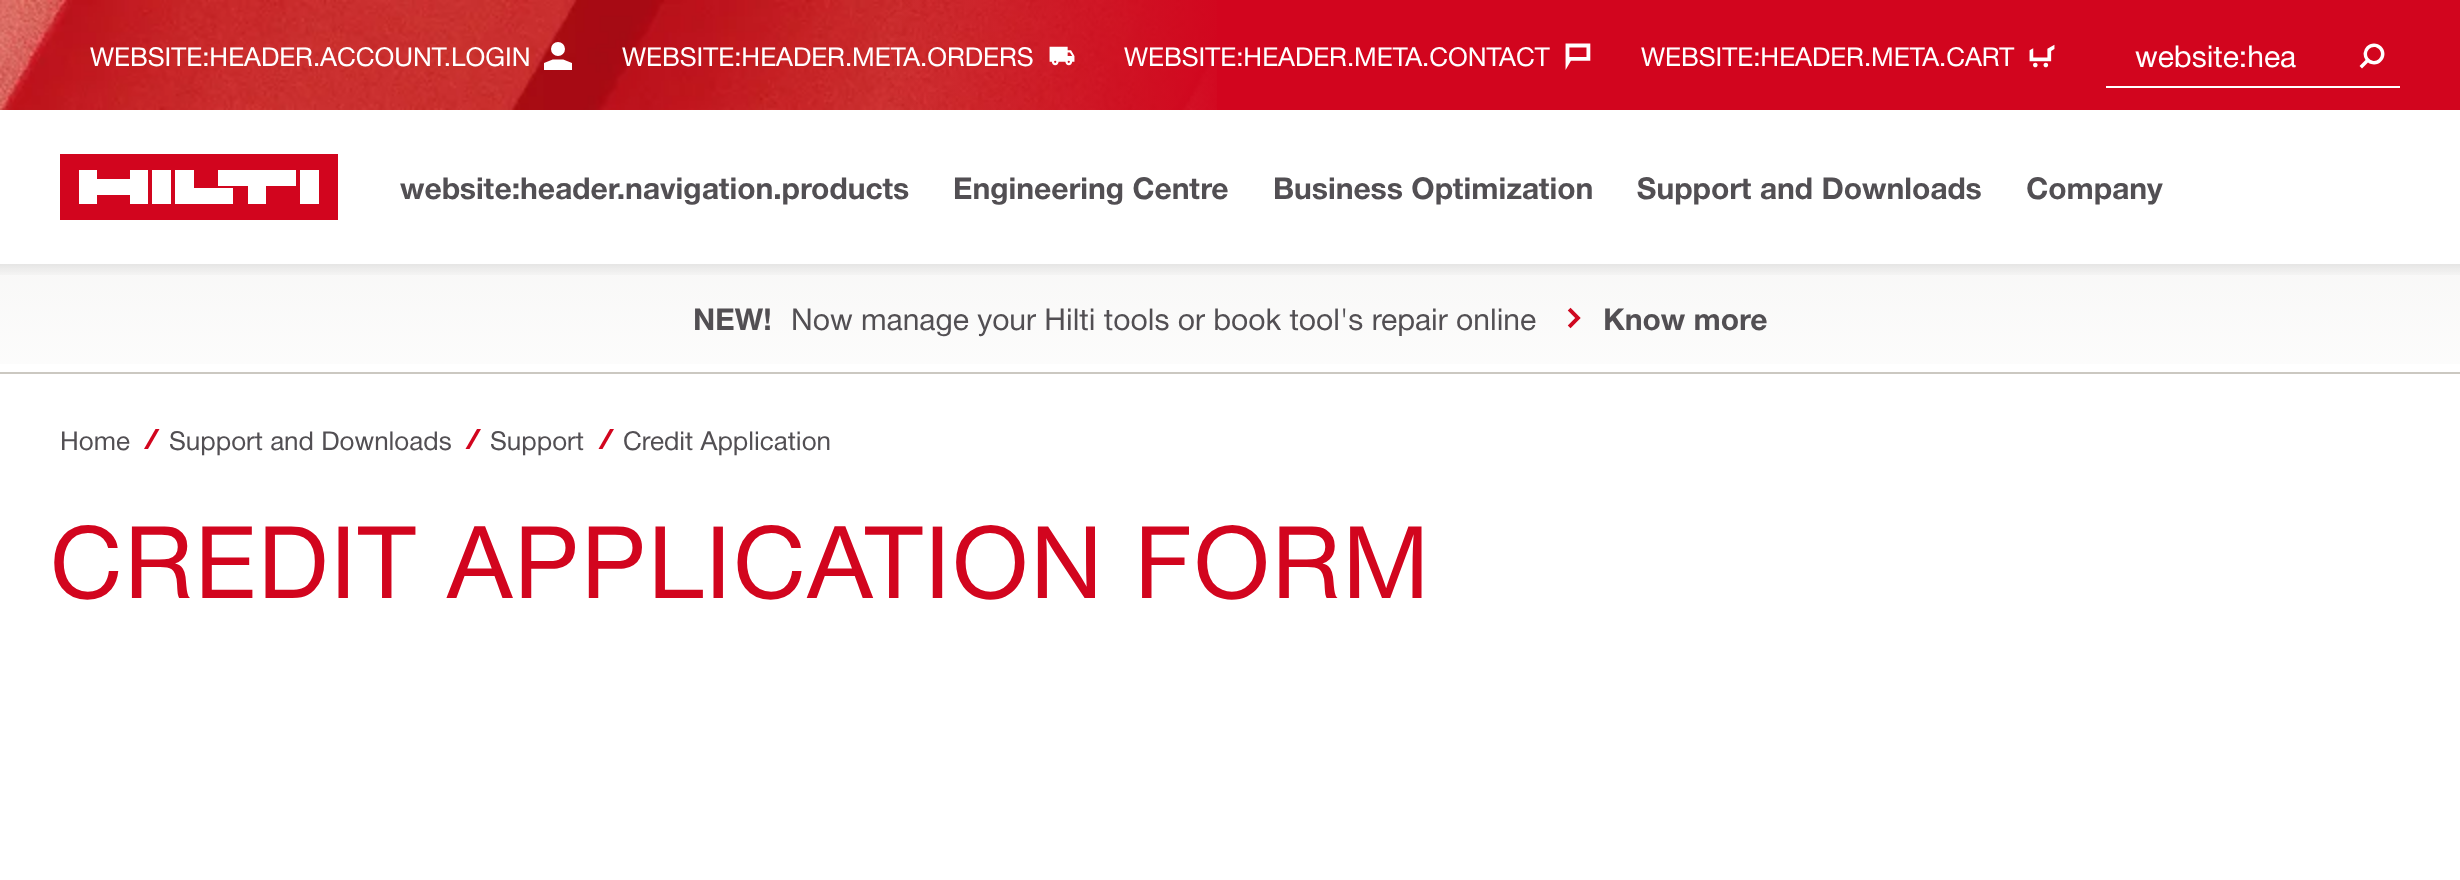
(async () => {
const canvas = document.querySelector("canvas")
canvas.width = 2460
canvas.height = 880
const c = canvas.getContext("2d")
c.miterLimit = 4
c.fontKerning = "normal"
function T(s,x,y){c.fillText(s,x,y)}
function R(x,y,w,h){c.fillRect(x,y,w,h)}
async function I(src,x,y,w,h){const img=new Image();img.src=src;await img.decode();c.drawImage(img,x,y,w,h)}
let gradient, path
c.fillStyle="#fff"
R(0,0,2460,880)
await I("7.png",1567,307,14,22)
gradient = c.createLinearGradient(1230,264,1230,440)
gradient.addColorStop(0,"#7d75650d")
gradient.addColorStop(1,"#7d756500")
c.fillStyle = gradient
R(0,264,2460,100)
c.save()
c.beginPath()
c.rect(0,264,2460,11)
c.clip()
c.fillStyle="#00000026"
c.filter="blur(10px)"
c.beginPath()
c.rect(-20,-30,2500,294)
c.fill()
c.filter="none"
c.restore()
c.fillStyle="#d2051e"
R(1217,0,1243,110)
await I("1.png",0,0,1217,110)
c.font="26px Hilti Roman"
c.fillStyle="#fff"
T("WEBSITE:HEADER.ACCOUNT.LOGIN",90,66)
await I("2.png",544,42,28,28)
T("WEBSITE:HEADER.META.ORDERS",622,66)
await I("3.png",1049,46,26,20)
T("WEBSITE:HEADER.META.CONTACT",1124,66)
await I("4.png",1565,43,26,27)
T("WEBSITE:HEADER.META.CART",1641,66)
await I("5.png",2029,44,26,24)
R(2106,86,294,2)
c.font="30px Hilti Roman"
T("website:hea",2135,67)
await I("6.png",2359,43,26,26)
c.fillStyle="#d2051e"
R(60,154,278,66)
c.fillStyle="#fff"
path = new Path2D("M171 204h-19v-34h19zm148-34h-19v34h19zm-240 34h18v-9h33v9h18v-34h-18v9h-33v-9h-18zm96 0h58v-16h-39v-18h-19zm43-18h30v18h18v-18h30v-16h-78z")
c.fill(path)
c.font="bold 30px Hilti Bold"
c.fillStyle="#524f53"
T("website:header.navigation.products",400,199)
T("Engineering Centre",953,199)
T("Business Optimization",1273,199)
T("Support and Downloads",1637,199)
T("Company",2026,199)
c.fillStyle="#cbc8c1"
R(0,372,2460,2)
c.fillStyle="#524f53"
T("NEW!",693,330)
c.font="30px Hilti Roman"
T("Now manage your Hilti tools or book tool's repair online",791,330)
c.font="bold 30px Hilti Bold"
T("Know more",1603,330)
c.font="26px Hilti Roman"
T("Home",60,450)
c.fillStyle="#d2051e"
path = new Path2D("M155.5 429h4l-11.5 20h-4z")
c.fill(path)
c.fillStyle="#524f53"
T("Support and Downloads",169,450)
c.fillStyle="#d2051e"
path = new Path2D("M477 429h4l-11.5 20h-4z")
c.fill(path)
c.fillStyle="#524f53"
T("Support",490,450)
c.fillStyle="#d2051e"
path = new Path2D("M610 429h4l-11.5 20h-4z")
c.fill(path)
c.fillStyle="#524f53"
T("Credit Application",623,450)
c.letterSpacing="2px"
c.font="100px Hilti Roman"
c.fillStyle="#d2051e"
T("CREDIT APPLICATION FORM",50,598)
})()
